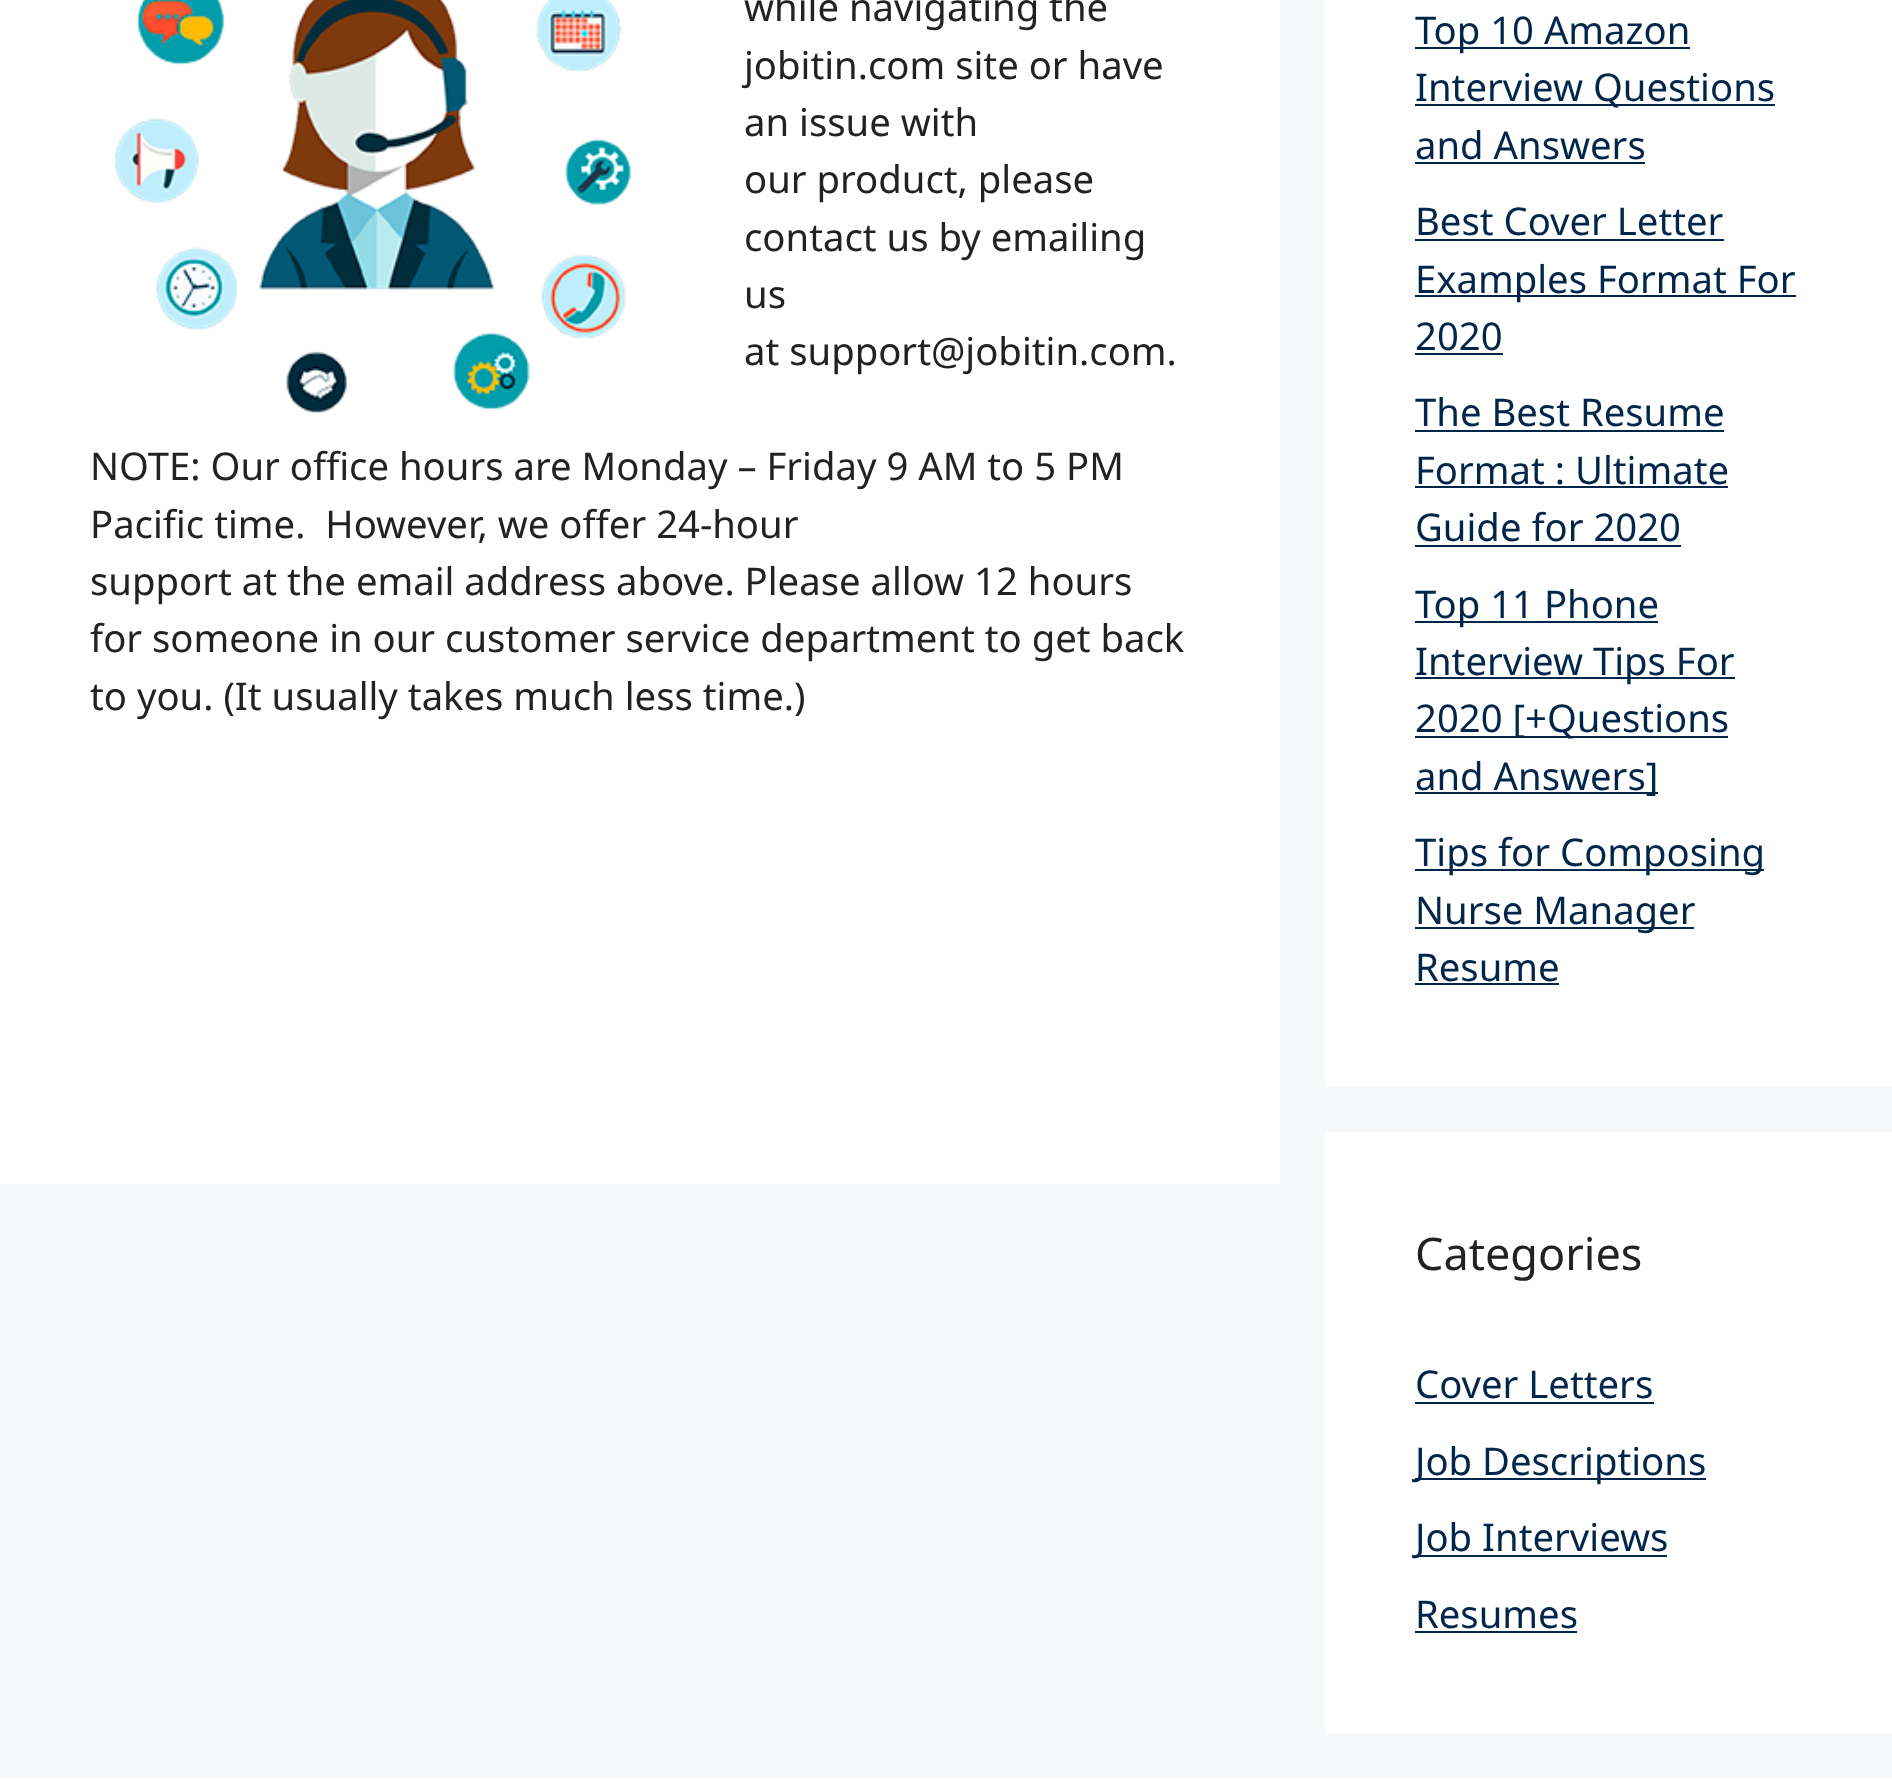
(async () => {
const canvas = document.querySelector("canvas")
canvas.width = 1892
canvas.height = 1782
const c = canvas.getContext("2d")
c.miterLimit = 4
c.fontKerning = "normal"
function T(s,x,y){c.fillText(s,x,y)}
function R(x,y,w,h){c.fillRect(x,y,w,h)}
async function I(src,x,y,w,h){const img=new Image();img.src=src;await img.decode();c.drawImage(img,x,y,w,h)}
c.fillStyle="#f7f8f9"
R(0,0,1892,1782)
c.fillStyle="#fff"
R(0,0,1280,1184)
await I("1.png",115,0,516,413)
c.font="38.25px Noto Sans"
c.fillStyle="#222"
T("while navigating the",744,21)
T("jobitin.com site or have",744,79)
T("an issue with",744,136)
T("our product, please",744,193)
T("contact us by emailing",744,251)
T("us",744,308)
T("at support@jobitin.com.",744,365)
T("NOTE: Our office hours are Monday – Friday 9 AM to 5 PM",90,480)
T("Pacific time.  However, we offer 24-hour",90,538)
T("support at the email address above. Please allow 12 hours",90,595)
T("for someone in our customer service department to get back",90,652)
T("to you. (It usually takes much less time.)",90,710)
c.fillStyle="#fff"
R(1325,0,567,1087)
c.fillStyle="#002649"
R(1415,47,275,2)
T("Top 10 Amazon",1415,44)
R(1415,104,360,2)
T("Interview Questions",1415,101)
T("and Answers",1415,159)
R(1415,162,230,2)
T("Best Cover Letter",1415,235)
R(1415,239,309,2)
R(1415,295,381,2)
T("Examples Format For",1415,293)
T("2020",1415,350)
R(1415,353,88,2)
T("The Best Resume",1415,426)
R(1415,430,309,2)
T("Format : Ultimate",1415,484)
R(1415,486,313,2)
T("Guide for 2020",1415,541)
R(1415,545,266,2)
R(1415,621,243,2)
T("Top 11 Phone",1415,618)
R(1415,677,320,2)
T("Interview Tips For",1415,675)
R(1415,736,313,2)
T("2020 [+Questions",1415,732)
R(1415,792,243,2)
T("and Answers]",1415,790)
R(1415,869,349,2)
T("Tips for Composing",1415,866)
R(1415,927,279,2)
T("Nurse Manager",1415,924)
T("Resume",1415,981)
R(1415,983,144,2)
c.fillStyle="#fff"
R(1325,1132,567,601)
c.font="45px Noto Sans"
c.fillStyle="#222"
T("Categories",1415,1270)
c.font="38.25px Noto Sans"
c.fillStyle="#002649"
T("Cover Letters",1415,1398)
R(1415,1402,239,2)
R(1415,1478,291,2)
T("Job Descriptions",1415,1475)
R(1415,1555,252,2)
T("Job Interviews",1415,1551)
T("Resumes",1415,1628)
R(1415,1631,162,2)
c.fillStyle="#fff"
R(0,1778,1892,4)
})()
